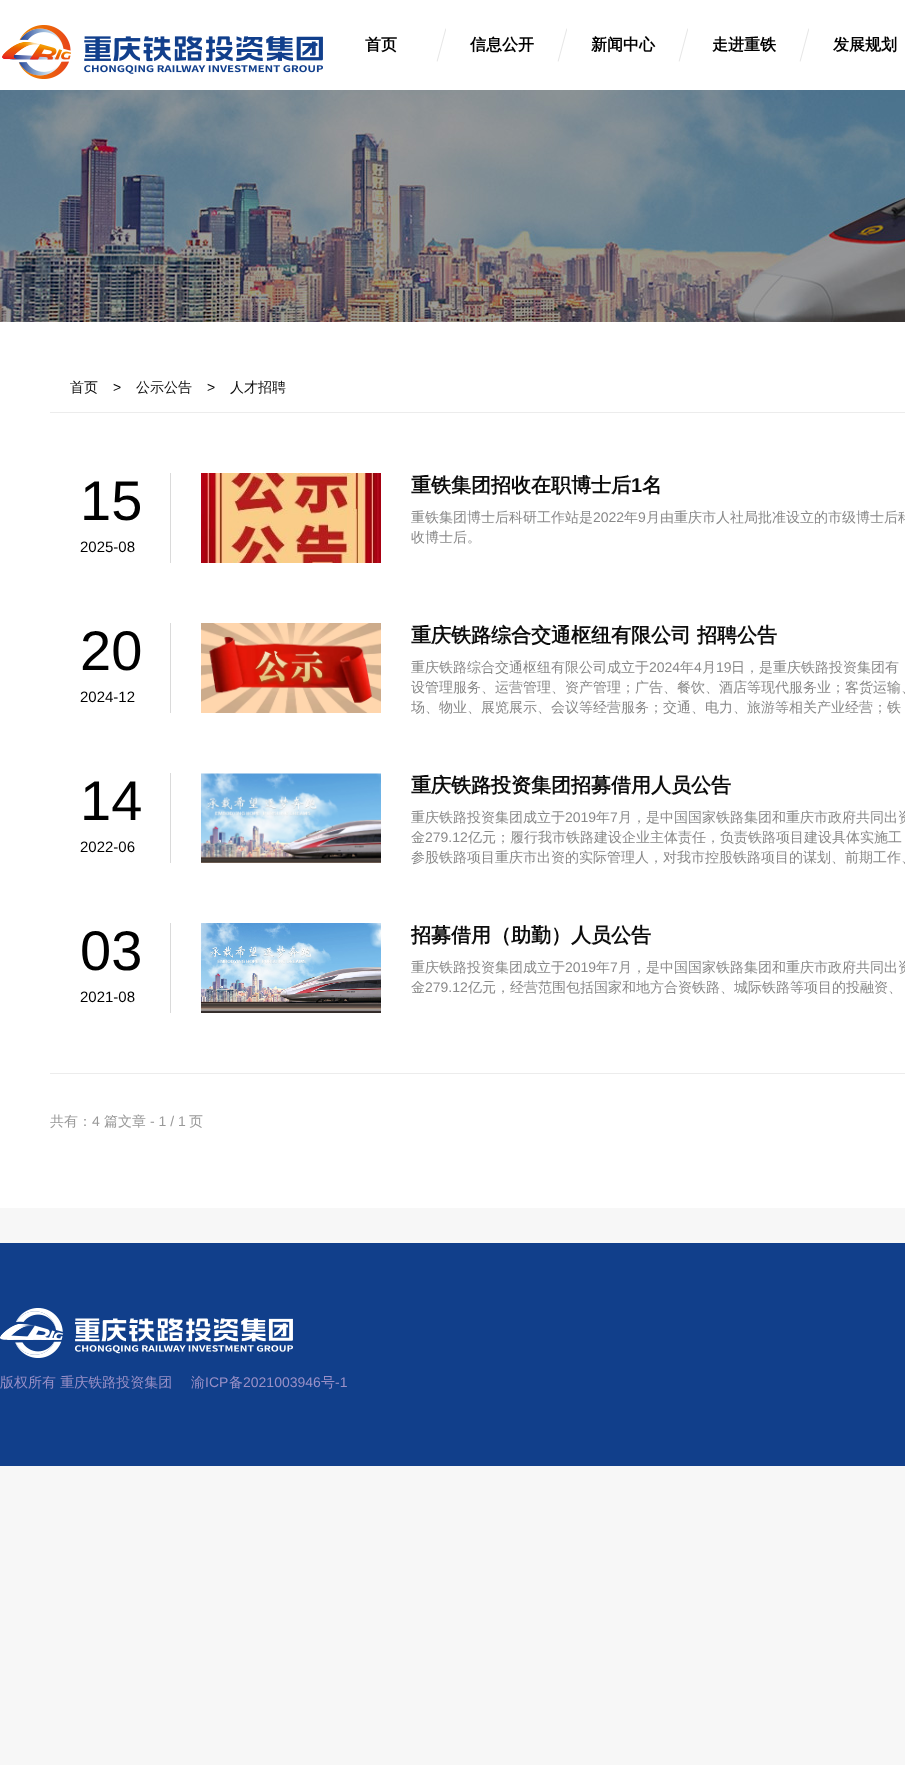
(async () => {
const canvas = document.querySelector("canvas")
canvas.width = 905
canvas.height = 1765
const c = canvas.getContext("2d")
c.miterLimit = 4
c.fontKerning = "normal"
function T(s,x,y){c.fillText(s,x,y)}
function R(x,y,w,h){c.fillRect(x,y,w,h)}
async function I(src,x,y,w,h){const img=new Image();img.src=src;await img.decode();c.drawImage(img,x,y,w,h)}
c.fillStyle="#f7f7f7"
R(0,0,905,1765)
c.fillStyle="#fff"
R(0,0,905,90)
await I("1.png",2,25,321,54)
await I("2.png",436,28,10,34)
c.font="bold 16px WenQuanYi Zen Hei"
c.fillStyle="#000"
T("首页",365,50)
await I("2.png",557,28,10,34)
T("信息公开",470,50)
await I("2.png",678,28,10,34)
T("新闻中心",591,50)
await I("2.png",799,28,10,34)
T("走进重铁",712,50)
T("发展规划",833,50)
await I("3.png",0,90,905,232)
c.fillStyle="#fff"
R(0,322,905,886)
c.fillStyle="#ececec"
R(50,412,855,1)
c.font="500 14px WenQuanYi Zen Hei"
c.fillStyle="#0c0c0c"
T("首页",70,392)
c.font="14px Liberation Sans"
c.fillStyle="#000"
T(">",113,392)
c.font="500 14px WenQuanYi Zen Hei"
c.fillStyle="#0c0c0c"
T("公示公告",136,392)
c.font="14px Liberation Sans"
c.fillStyle="#000"
T(">",207,392)
c.font="500 14px WenQuanYi Zen Hei"
c.fillStyle="#0c0c0c"
T("人才招聘",230,392)
c.fillStyle="#dadada"
R(170,473,1,90)
c.font="56px Liberation Sans"
c.fillStyle="#000"
T("15",80,520)
c.font="15px Liberation Sans"
T("2025-08",80,552)
await I("4.png",201,473,180,90)
c.font="bold 20px WenQuanYi Zen Hei"
c.fillStyle="#0c0c0c"
T("重铁集团招收在职博士后",411,492)
c.font="bold 20px Liberation Sans"
T("1",631,492)
c.font="bold 20px WenQuanYi Zen Hei"
T("名",642,492)
c.font="500 14px WenQuanYi Zen Hei"
c.fillStyle="#888"
T("重铁集团博士后科研工作站是",411,522)
c.font="14px Liberation Sans"
T("2022",593,522)
c.font="500 14px WenQuanYi Zen Hei"
T("年",624,522)
c.font="14px Liberation Sans"
T("9",638,522)
c.font="500 14px WenQuanYi Zen Hei"
T("月由重庆市人社局批准设立的市级博士后科",646,522)
T("收博士后。",411,542)
c.fillStyle="#dadada"
R(170,623,1,90)
c.font="56px Liberation Sans"
c.fillStyle="#000"
T("20",80,670)
c.font="15px Liberation Sans"
T("2024-12",80,702)
await I("5.png",201,623,180,90)
c.font="bold 20px WenQuanYi Zen Hei"
c.fillStyle="#0c0c0c"
T("重庆铁路综合交通枢纽有限公司 招聘公告",411,642)
c.font="500 14px WenQuanYi Zen Hei"
c.fillStyle="#888"
T("重庆铁路综合交通枢纽有限公司成立于",411,672)
c.font="14px Liberation Sans"
T("2024",649,672)
c.font="500 14px WenQuanYi Zen Hei"
T("年",680,672)
c.font="14px Liberation Sans"
T("4",694,672)
c.font="500 14px WenQuanYi Zen Hei"
T("月",702,672)
c.font="14px Liberation Sans"
T("19",716,672)
c.font="500 14px WenQuanYi Zen Hei"
T("日，是重庆铁路投资集团有",731,672)
T("设管理服务、运营管理、资产管理；广告、餐饮、酒店等现代服务业；客货运输、",411,692)
T("场、物业、展览展示、会议等经营服务；交通、电力、旅游等相关产业经营；铁",411,712)
c.fillStyle="#dadada"
R(170,773,1,90)
c.font="56px Liberation Sans"
c.fillStyle="#000"
T("14",80,820)
c.font="15px Liberation Sans"
T("2022-06",80,852)
await I("6.png",201,773,180,90)
c.font="bold 20px WenQuanYi Zen Hei"
c.fillStyle="#0c0c0c"
T("重庆铁路投资集团招募借用人员公告",411,792)
c.font="500 14px WenQuanYi Zen Hei"
c.fillStyle="#888"
T("重庆铁路投资集团成立于",411,822)
c.font="14px Liberation Sans"
T("2019",565,822)
c.font="500 14px WenQuanYi Zen Hei"
T("年",596,822)
c.font="14px Liberation Sans"
T("7",610,822)
c.font="500 14px WenQuanYi Zen Hei"
T("月，是中国国家铁路集团和重庆市政府共同出资",618,822)
T("金",411,842)
c.font="14px Liberation Sans"
T("279.12",425,842)
c.font="500 14px WenQuanYi Zen Hei"
T("亿元；履行我市铁路建设企业主体责任，负责铁路项目建设具体实施工",468,842)
T("参股铁路项目重庆市出资的实际管理人，对我市控股铁路项目的谋划、前期工作、",411,862)
c.fillStyle="#dadada"
R(170,923,1,90)
c.font="56px Liberation Sans"
c.fillStyle="#000"
T("03",80,970)
c.font="15px Liberation Sans"
T("2021-08",80,1002)
await I("7.png",201,923,180,90)
c.font="bold 20px WenQuanYi Zen Hei"
c.fillStyle="#0c0c0c"
T("招募借用（助勤）人员公告",411,942)
c.font="500 14px WenQuanYi Zen Hei"
c.fillStyle="#888"
T("重庆铁路投资集团成立于",411,972)
c.font="14px Liberation Sans"
T("2019",565,972)
c.font="500 14px WenQuanYi Zen Hei"
T("年",596,972)
c.font="14px Liberation Sans"
T("7",610,972)
c.font="500 14px WenQuanYi Zen Hei"
T("月，是中国国家铁路集团和重庆市政府共同出资",618,972)
T("金",411,992)
c.font="14px Liberation Sans"
T("279.12",425,992)
c.font="500 14px WenQuanYi Zen Hei"
T("亿元，经营范围包括国家和地方合资铁路、城际铁路等项目的投融资、",468,992)
c.fillStyle="#ececec"
R(50,1073,855,1)
c.fillStyle="#999"
T("共有：",50,1126)
c.font="14px Liberation Sans"
T("4",92,1126)
c.font="500 14px WenQuanYi Zen Hei"
T("篇文章",104,1126)
c.font="14px Liberation Sans"
T("- 1 / 1",150,1126)
c.font="500 14px WenQuanYi Zen Hei"
T("页",189,1126)
c.fillStyle="#113f8b"
R(0,1243,905,223)
await I("8.png",0,1308,293,50)
c.fillStyle="#9a90c7"
T("版权所有 重庆铁路投资集团",0,1387)
T("渝",191,1387)
c.font="14px Liberation Sans"
T("ICP",205,1387)
c.font="500 14px WenQuanYi Zen Hei"
T("备",229,1387)
c.font="14px Liberation Sans"
T("2021003946",243,1387)
c.font="500 14px WenQuanYi Zen Hei"
T("号",321,1387)
c.font="14px Liberation Sans"
T("-1",335,1387)
})()
